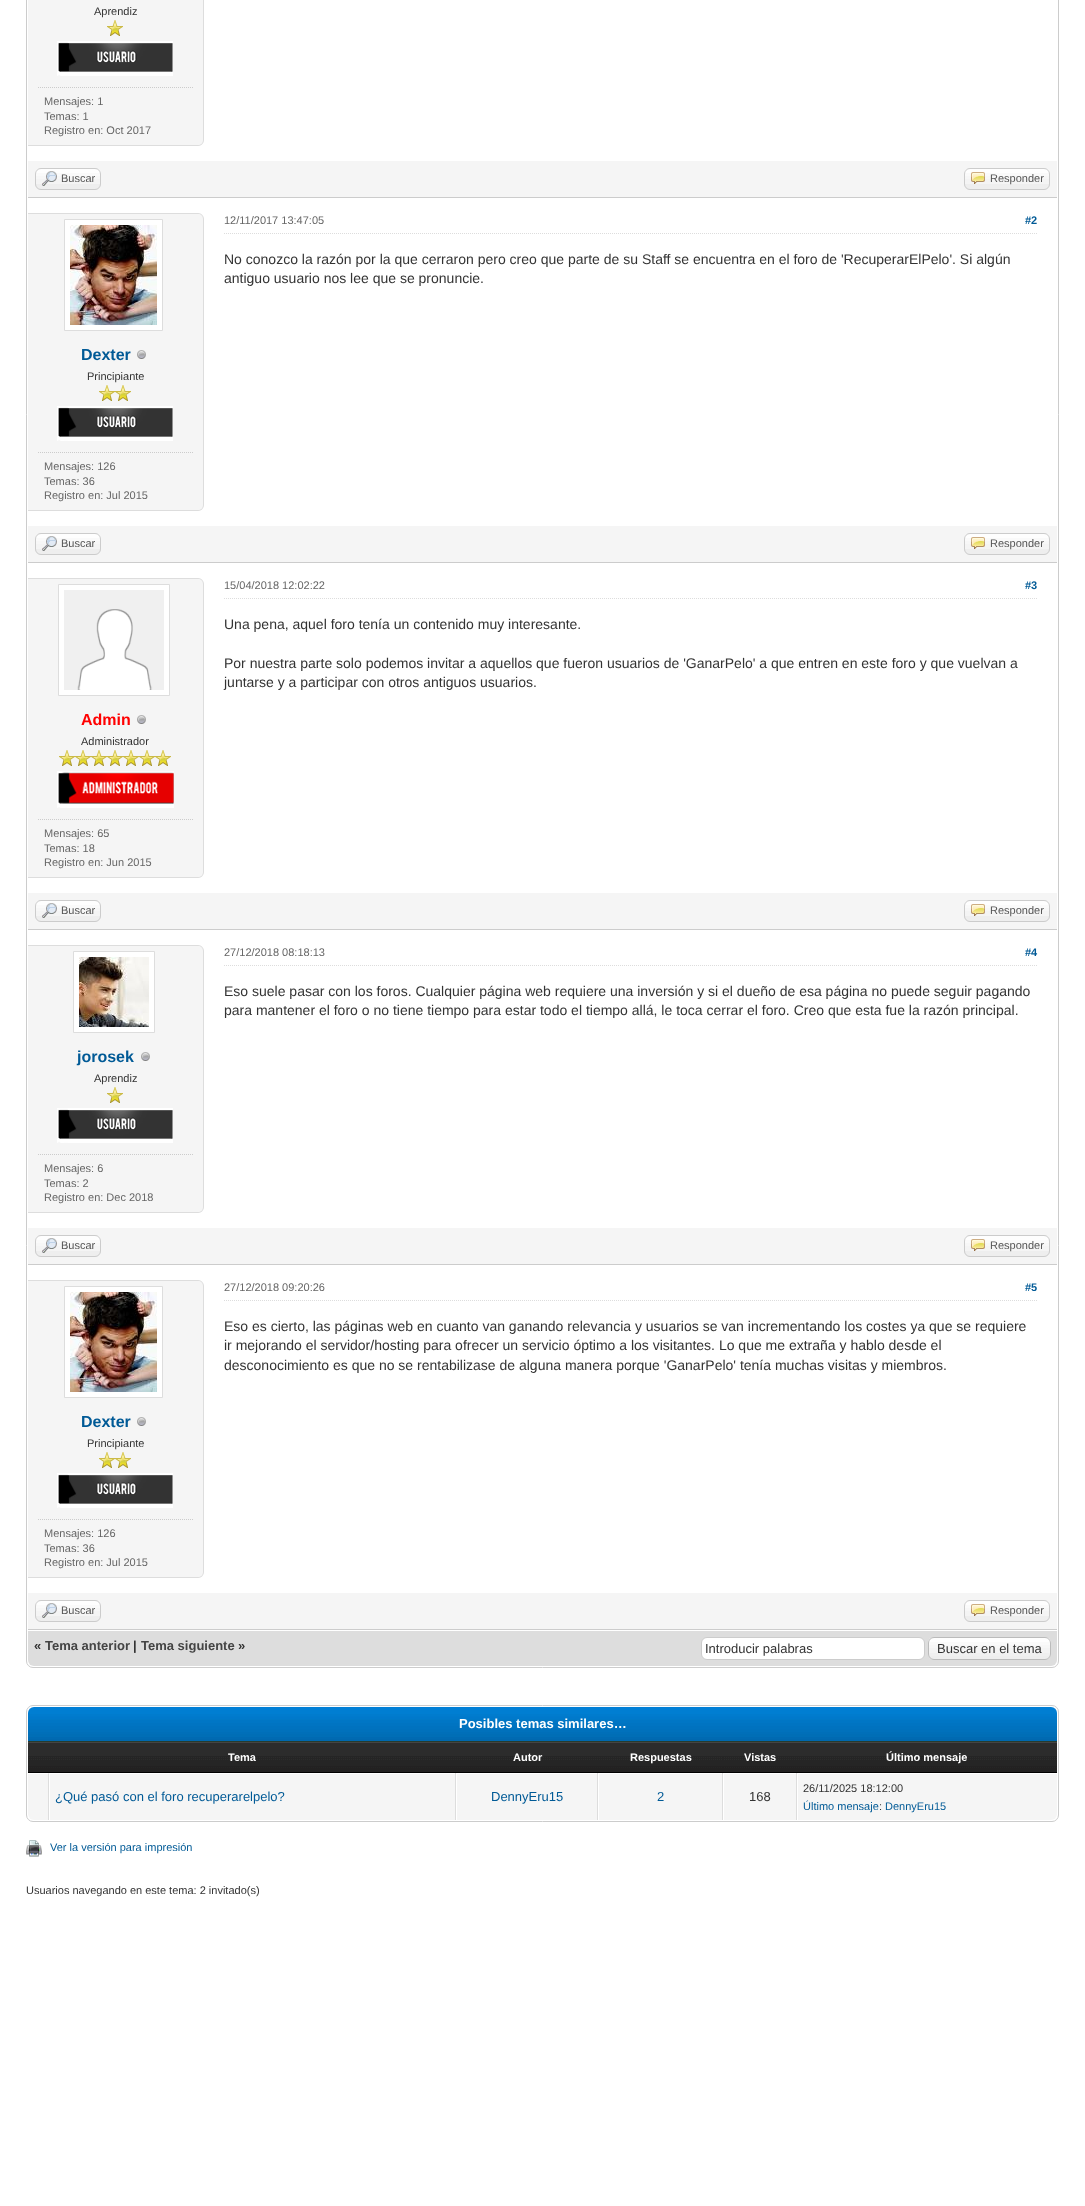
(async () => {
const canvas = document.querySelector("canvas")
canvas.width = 1085
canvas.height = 2206
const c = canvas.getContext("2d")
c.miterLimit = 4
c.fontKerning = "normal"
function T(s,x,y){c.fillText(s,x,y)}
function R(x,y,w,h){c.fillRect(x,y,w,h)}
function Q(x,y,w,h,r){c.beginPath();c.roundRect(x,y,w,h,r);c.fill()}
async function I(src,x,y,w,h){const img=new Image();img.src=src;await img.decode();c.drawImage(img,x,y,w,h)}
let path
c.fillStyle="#fff"
R(0,0,1085,2206)
c.beginPath()
c.roundRect(26.5,-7.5,1032,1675,6.5)
c.strokeStyle="#ccc"
c.stroke()
c.fillStyle="#f5f5f5"
path = new Path2D("M28-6h170c3.5 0 6 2.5 6 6v140c0 3.5-2.5 6-6 6h-170z")
c.fill(path)
c.fillStyle="#ddd"
path = new Path2D("M28-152h170c3 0 6 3 6 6v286c0 3-3 6-6 6h-170zm0 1h170c3 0 5 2 5 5v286c0 3-2 5-5 5h-170z")
c.fill(path,"evenodd")
c.font="11px Liberation Sans"
c.fillStyle="#333"
T("Aprendiz",94,15)
await I("1.png",107,20,16,16)
await I("2.png",57,41,116,35)
path = new Path2D("M38 87.5h155")
c.setLineDash([1,1])
c.stroke(path)
c.fillStyle="#666"
T("Mensajes: 1",44,105)
T("Temas: 1",44,120)
T("Registro en: Oct 2017",44,134)
c.fillStyle="#f5f5f5"
R(28,161,1029,36)
c.fillStyle="#ccc"
R(28,197,1029,1)
c.fillStyle="#eee"
Q(35,168,66,22,6)
await I("3.png",35,169,66,15)
c.beginPath()
c.roundRect(35.5,168.5,65,21,5.5)
c.setLineDash([])
c.stroke()
await I("4.png",42,171,15,15)
c.fillStyle="#555"
T("Buscar",61,182)
c.fillStyle="#eee"
Q(964,168,86,22,6)
await I("5.png",964,169,86,15)
c.beginPath()
c.roundRect(964.5,168.5,85,21,5.5)
c.stroke()
await I("6.png",971,172,14,12)
c.fillStyle="#555"
T("Responder",990,182)
path = new Path2D("M224 233.5h813")
c.strokeStyle="#ddd"
c.setLineDash([1,1])
c.stroke(path)
c.fillStyle="#666"
T("12/11/2017 13:47:05",224,224)
c.font="bold 11px Liberation Sans"
c.fillStyle="#005a96"
T("#2",1025,224)
c.font="14px Liberation Sans"
c.fillStyle="#333"
T("No conozco la razón por la que cerraron pero creo que parte de su Staff se encuentra en el foro de 'RecuperarElPelo'. Si algún",224,264)
T("antiguo usuario nos lee que se pronuncie.",224,283)
c.fillStyle="#f5f5f5"
c.beginPath()
c.roundRect(28,213,176,298,[0,6,6,0])
c.fill()
c.fillStyle="#ddd"
path = new Path2D("M28 213h170c3 0 6 3 6 6v286c0 3-3 6-6 6h-170zm0 1h170c3 0 5 2 5 5v286c0 3-2 5-5 5h-170z")
c.fill(path,"evenodd")
c.fillStyle="#fff"
c.beginPath()
c.rect(64.5,219.5,98,111)
c.fill()
c.setLineDash([])
c.stroke()
await I("7.png",70,225,87,100)
c.font="bold 16px Liberation Sans"
c.fillStyle="#005a96"
T("Dexter",81,360)
await I("8.png",137,350,9,9)
c.font="11px Liberation Sans"
c.fillStyle="#333"
T("Principiante",87,380)
await I("1.png",99,385,16,16)
await I("1.png",115,385,16,16)
await I("2.png",57,406,116,35)
path = new Path2D("M38 452.5h155")
c.strokeStyle="#ccc"
c.setLineDash([1,1])
c.stroke(path)
c.fillStyle="#666"
T("Mensajes: 126",44,470)
T("Temas: 36",44,485)
T("Registro en: Jul 2015",44,499)
c.fillStyle="#f5f5f5"
R(28,526,1029,36)
c.fillStyle="#ccc"
R(28,562,1029,1)
c.fillStyle="#eee"
Q(35,533,66,22,6)
await I("3.png",35,534,66,15)
c.beginPath()
c.roundRect(35.5,533.5,65,21,5.5)
c.setLineDash([])
c.stroke()
await I("4.png",42,536,15,15)
c.fillStyle="#555"
T("Buscar",61,547)
c.fillStyle="#eee"
Q(964,533,86,22,6)
await I("5.png",964,534,86,15)
c.beginPath()
c.roundRect(964.5,533.5,85,21,5.5)
c.stroke()
await I("6.png",971,537,14,12)
c.fillStyle="#555"
T("Responder",990,547)
path = new Path2D("M224 598.5h813")
c.strokeStyle="#ddd"
c.setLineDash([1,1])
c.stroke(path)
c.fillStyle="#666"
T("15/04/2018 12:02:22",224,589)
c.font="bold 11px Liberation Sans"
c.fillStyle="#005a96"
T("#3",1025,589)
c.font="14px Liberation Sans"
c.fillStyle="#333"
T("Una pena, aquel foro tenía un contenido muy interesante.",224,629)
T("Por nuestra parte solo podemos invitar a aquellos que fueron usuarios de 'GanarPelo' a que entren en este foro y que vuelvan a",224,668)
T("juntarse y a participar con otros antiguos usuarios.",224,687)
c.fillStyle="#f5f5f5"
c.beginPath()
c.roundRect(28,578,176,300,[0,6,6,0])
c.fill()
c.fillStyle="#ddd"
path = new Path2D("M28 578h170c3 0 6 3 6 6v288c0 3-3 6-6 6h-170zm0 1h170c3 0 5 2 5 5v288c0 3-2 5-5 5h-170z")
c.fill(path,"evenodd")
c.fillStyle="#fff"
c.beginPath()
c.rect(58.5,584.5,111,111)
c.fill()
c.setLineDash([])
c.stroke()
await I("9.png",64,590,100,100)
c.font="bold 16px Liberation Sans"
c.fillStyle="#f00"
T("Admin",81,725)
await I("8.png",137,715,9,9)
c.font="11px Liberation Sans"
c.fillStyle="#333"
T("Administrador",81,745)
await I("1.png",59,750,16,16)
await I("1.png",75,750,16,16)
await I("1.png",91,750,16,16)
await I("1.png",107,750,16,16)
await I("1.png",123,750,16,16)
await I("1.png",139,750,16,16)
await I("1.png",155,750,16,16)
await I("10.png",57,771,117,37)
path = new Path2D("M38 819.5h155")
c.strokeStyle="#ccc"
c.setLineDash([1,1])
c.stroke(path)
c.fillStyle="#666"
T("Mensajes: 65",44,837)
T("Temas: 18",44,852)
T("Registro en: Jun 2015",44,866)
c.fillStyle="#f5f5f5"
R(28,893,1029,36)
c.fillStyle="#ccc"
R(28,929,1029,1)
c.fillStyle="#eee"
Q(35,900,66,22,6)
await I("3.png",35,901,66,15)
c.beginPath()
c.roundRect(35.5,900.5,65,21,5.5)
c.setLineDash([])
c.stroke()
await I("4.png",42,903,15,15)
c.fillStyle="#555"
T("Buscar",61,914)
c.fillStyle="#eee"
Q(964,900,86,22,6)
await I("5.png",964,901,86,15)
c.beginPath()
c.roundRect(964.5,900.5,85,21,5.5)
c.stroke()
await I("6.png",971,904,14,12)
c.fillStyle="#555"
T("Responder",990,914)
path = new Path2D("M224 965.5h813")
c.strokeStyle="#ddd"
c.setLineDash([1,1])
c.stroke(path)
c.fillStyle="#666"
T("27/12/2018 08:18:13",224,956)
c.font="bold 11px Liberation Sans"
c.fillStyle="#005a96"
T("#4",1025,956)
c.font="14px Liberation Sans"
c.fillStyle="#333"
T("Eso suele pasar con los foros. Cualquier página web requiere una inversión y si el dueño de esa página no puede seguir pagando",224,996)
T("para mantener el foro o no tiene tiempo para estar todo el tiempo allá, le toca cerrar el foro. Creo que esta fue la razón principal.",224,1015)
c.fillStyle="#f5f5f5"
c.beginPath()
c.roundRect(28,945,176,268,[0,6,6,0])
c.fill()
c.fillStyle="#ddd"
path = new Path2D("M28 945h170c3 0 6 3 6 6v256c0 3-3 6-6 6h-170zm0 1h170c3 0 5 2 5 5v256c0 3-2 5-5 5h-170z")
c.fill(path,"evenodd")
c.fillStyle="#fff"
c.beginPath()
c.rect(73.5,951.5,81,81)
c.fill()
c.setLineDash([])
c.stroke()
await I("11.png",79,957,70,70)
c.font="bold 16px Liberation Sans"
c.fillStyle="#005a96"
T("jorosek",77,1062)
await I("8.png",141,1052,9,9)
c.font="11px Liberation Sans"
c.fillStyle="#333"
T("Aprendiz",94,1082)
await I("1.png",107,1087,16,16)
await I("2.png",57,1108,116,35)
path = new Path2D("M38 1154.5h155")
c.strokeStyle="#ccc"
c.setLineDash([1,1])
c.stroke(path)
c.fillStyle="#666"
T("Mensajes: 6",44,1172)
T("Temas: 2",44,1187)
T("Registro en: Dec 2018",44,1201)
c.fillStyle="#f5f5f5"
R(28,1228,1029,36)
c.fillStyle="#ccc"
R(28,1264,1029,1)
c.fillStyle="#eee"
Q(35,1235,66,22,6)
await I("3.png",35,1236,66,15)
c.beginPath()
c.roundRect(35.5,1235.5,65,21,5.5)
c.setLineDash([])
c.stroke()
await I("4.png",42,1238,15,15)
c.fillStyle="#555"
T("Buscar",61,1249)
c.fillStyle="#eee"
Q(964,1235,86,22,6)
await I("5.png",964,1236,86,15)
c.beginPath()
c.roundRect(964.5,1235.5,85,21,5.5)
c.stroke()
await I("6.png",971,1239,14,12)
c.fillStyle="#555"
T("Responder",990,1249)
path = new Path2D("M224 1300.5h813")
c.strokeStyle="#ddd"
c.setLineDash([1,1])
c.stroke(path)
c.fillStyle="#666"
T("27/12/2018 09:20:26",224,1291)
c.font="bold 11px Liberation Sans"
c.fillStyle="#005a96"
T("#5",1025,1291)
c.font="14px Liberation Sans"
c.fillStyle="#333"
T("Eso es cierto, las páginas web en cuanto van ganando relevancia y usuarios se van incrementando los costes ya que se requiere",224,1331)
T("ir mejorando el servidor/hosting para ofrecer un servicio óptimo a los visitantes. Lo que me extraña y hablo desde el",224,1350)
T("desconocimiento es que no se rentabilizase de alguna manera porque 'GanarPelo' tenía muchas visitas y miembros.",224,1370)
c.fillStyle="#f5f5f5"
c.beginPath()
c.roundRect(28,1280,176,298,[0,6,6,0])
c.fill()
c.fillStyle="#ddd"
path = new Path2D("M28 1280h170c3 0 6 3 6 6v286c0 3-3 6-6 6h-170zm0 1h170c3 0 5 2 5 5v286c0 3-2 5-5 5h-170z")
c.fill(path,"evenodd")
c.fillStyle="#fff"
c.beginPath()
c.rect(64.5,1286.5,98,111)
c.fill()
c.setLineDash([])
c.stroke()
await I("7.png",70,1292,87,100)
c.font="bold 16px Liberation Sans"
c.fillStyle="#005a96"
T("Dexter",81,1427)
await I("8.png",137,1417,9,9)
c.font="11px Liberation Sans"
c.fillStyle="#333"
T("Principiante",87,1447)
await I("1.png",99,1452,16,16)
await I("1.png",115,1452,16,16)
await I("2.png",57,1473,116,35)
path = new Path2D("M38 1519.5h155")
c.strokeStyle="#ccc"
c.setLineDash([1,1])
c.stroke(path)
c.fillStyle="#666"
T("Mensajes: 126",44,1537)
T("Temas: 36",44,1552)
T("Registro en: Jul 2015",44,1566)
c.fillStyle="#f5f5f5"
R(28,1593,1029,36)
c.fillStyle="#ccc"
R(28,1629,1029,1)
c.fillStyle="#eee"
Q(35,1600,66,22,6)
await I("3.png",35,1601,66,15)
c.beginPath()
c.roundRect(35.5,1600.5,65,21,5.5)
c.setLineDash([])
c.stroke()
await I("4.png",42,1603,15,15)
c.fillStyle="#555"
T("Buscar",61,1614)
c.fillStyle="#eee"
Q(964,1600,86,22,6)
await I("5.png",964,1601,86,15)
c.beginPath()
c.roundRect(964.5,1600.5,85,21,5.5)
c.stroke()
await I("6.png",971,1604,14,12)
c.fillStyle="#555"
T("Responder",990,1614)
c.fillStyle="#ddd"
c.beginPath()
c.roundRect(28,1630,1029,36,[0,0,6,6])
c.fill()
c.fillStyle="#fff"
R(28,1630,1029,1)
c.font="bold 13px Liberation Sans"
c.fillStyle="#333"
T("«",34,1650)
c.fillStyle="#444"
T("Tema anterior",45,1650)
c.fillStyle="#333"
T("|",133,1650)
c.fillStyle="#444"
T("Tema siguiente",141,1650)
c.fillStyle="#333"
T("»",238,1650)
c.fillStyle="#fff"
c.beginPath()
c.roundRect(701.5,1637.5,223,22,5.5)
c.fill()
c.stroke()
c.font="13px Liberation Sans"
c.fillStyle="#333"
T("Introducir palabras",705,1653)
c.fillStyle="#eee"
Q(928,1637,123,23,6)
await I("12.png",928,1638,123,18)
c.beginPath()
c.roundRect(928.5,1637.5,122,22,5.5)
c.strokeStyle="#bbb"
c.stroke()
c.fillStyle="#333"
T("Buscar en el tema",937,1653)
c.beginPath()
c.roundRect(26.5,1705.5,1032,116,6.5)
c.strokeStyle="#ccc"
c.stroke()
await I("13.png",28,1707,1029,34)
c.fillStyle="#263c30"
R(28,1741,1029,1)
c.font="bold 13px Liberation Sans"
c.fillStyle="#fff"
T("Posibles temas similares…",459,1728)
await I("14.png",28,1743,428,29)
c.fillStyle="#444"
R(28,1742,1029,1)
c.fillStyle="#000"
R(28,1772,1029,1)
c.font="bold 11px Liberation Sans"
c.fillStyle="#fff"
T("Tema",228,1761)
await I("15.png",456,1743,142,29)
T("Autor",513,1761)
await I("16.png",598,1743,125,29)
T("Respuestas",630,1761)
await I("17.png",723,1743,74,29)
T("Vistas",744,1761)
await I("18.png",797,1743,260,29)
T("Último mensaje",886,1761)
c.fillStyle="#f5f5f5"
c.beginPath()
c.roundRect(28,1773,21,47,[0,0,0,6])
c.fill()
c.fillStyle="#fff"
path = new Path2D("M28 1773v1h20l1-1z")
c.fill(path)
c.fillStyle="#ddd"
path = new Path2D("M49 1773l-1 1v46h1z")
c.fill(path)
c.fillStyle="#f5f5f5"
R(50,1774,405,46)
c.fillStyle="#ddd"
R(455,1773,1,47)
c.font="13px Liberation Sans"
c.fillStyle="#005a96"
T("¿Qué pasó con el foro recuperarelpelo?",55,1801)
c.fillStyle="#f5f5f5"
R(457,1774,140,46)
c.fillStyle="#ddd"
R(597,1773,1,47)
c.fillStyle="#005a96"
T("DennyEru15",491,1801)
c.fillStyle="#f5f5f5"
R(599,1774,123,46)
c.fillStyle="#ddd"
R(722,1773,1,47)
c.fillStyle="#005a96"
T("2",657,1801)
c.fillStyle="#f5f5f5"
R(724,1774,72,46)
c.fillStyle="#ddd"
R(796,1773,1,47)
c.fillStyle="#333"
T("168",749,1801)
c.fillStyle="#f5f5f5"
c.beginPath()
c.roundRect(797,1773,260,47,[0,0,6,0])
c.fill()
c.fillStyle="#fff"
R(797,1773,260,1)
R(797,1773,1,47)
c.font="11px Liberation Sans"
c.fillStyle="#333"
T("26/11/2025 18:12:00",803,1792)
c.fillStyle="#005a96"
T("Último mensaje",803,1810)
c.fillStyle="#333"
T(":",879,1810)
c.fillStyle="#005a96"
T("DennyEru15",885,1810)
await I("19.png",26,1840,16,17)
T("Ver la versión para impresión",50,1851)
c.fillStyle="#333"
T("Usuarios navegando en este tema: 2 invitado(s)",26,1894)
})()
